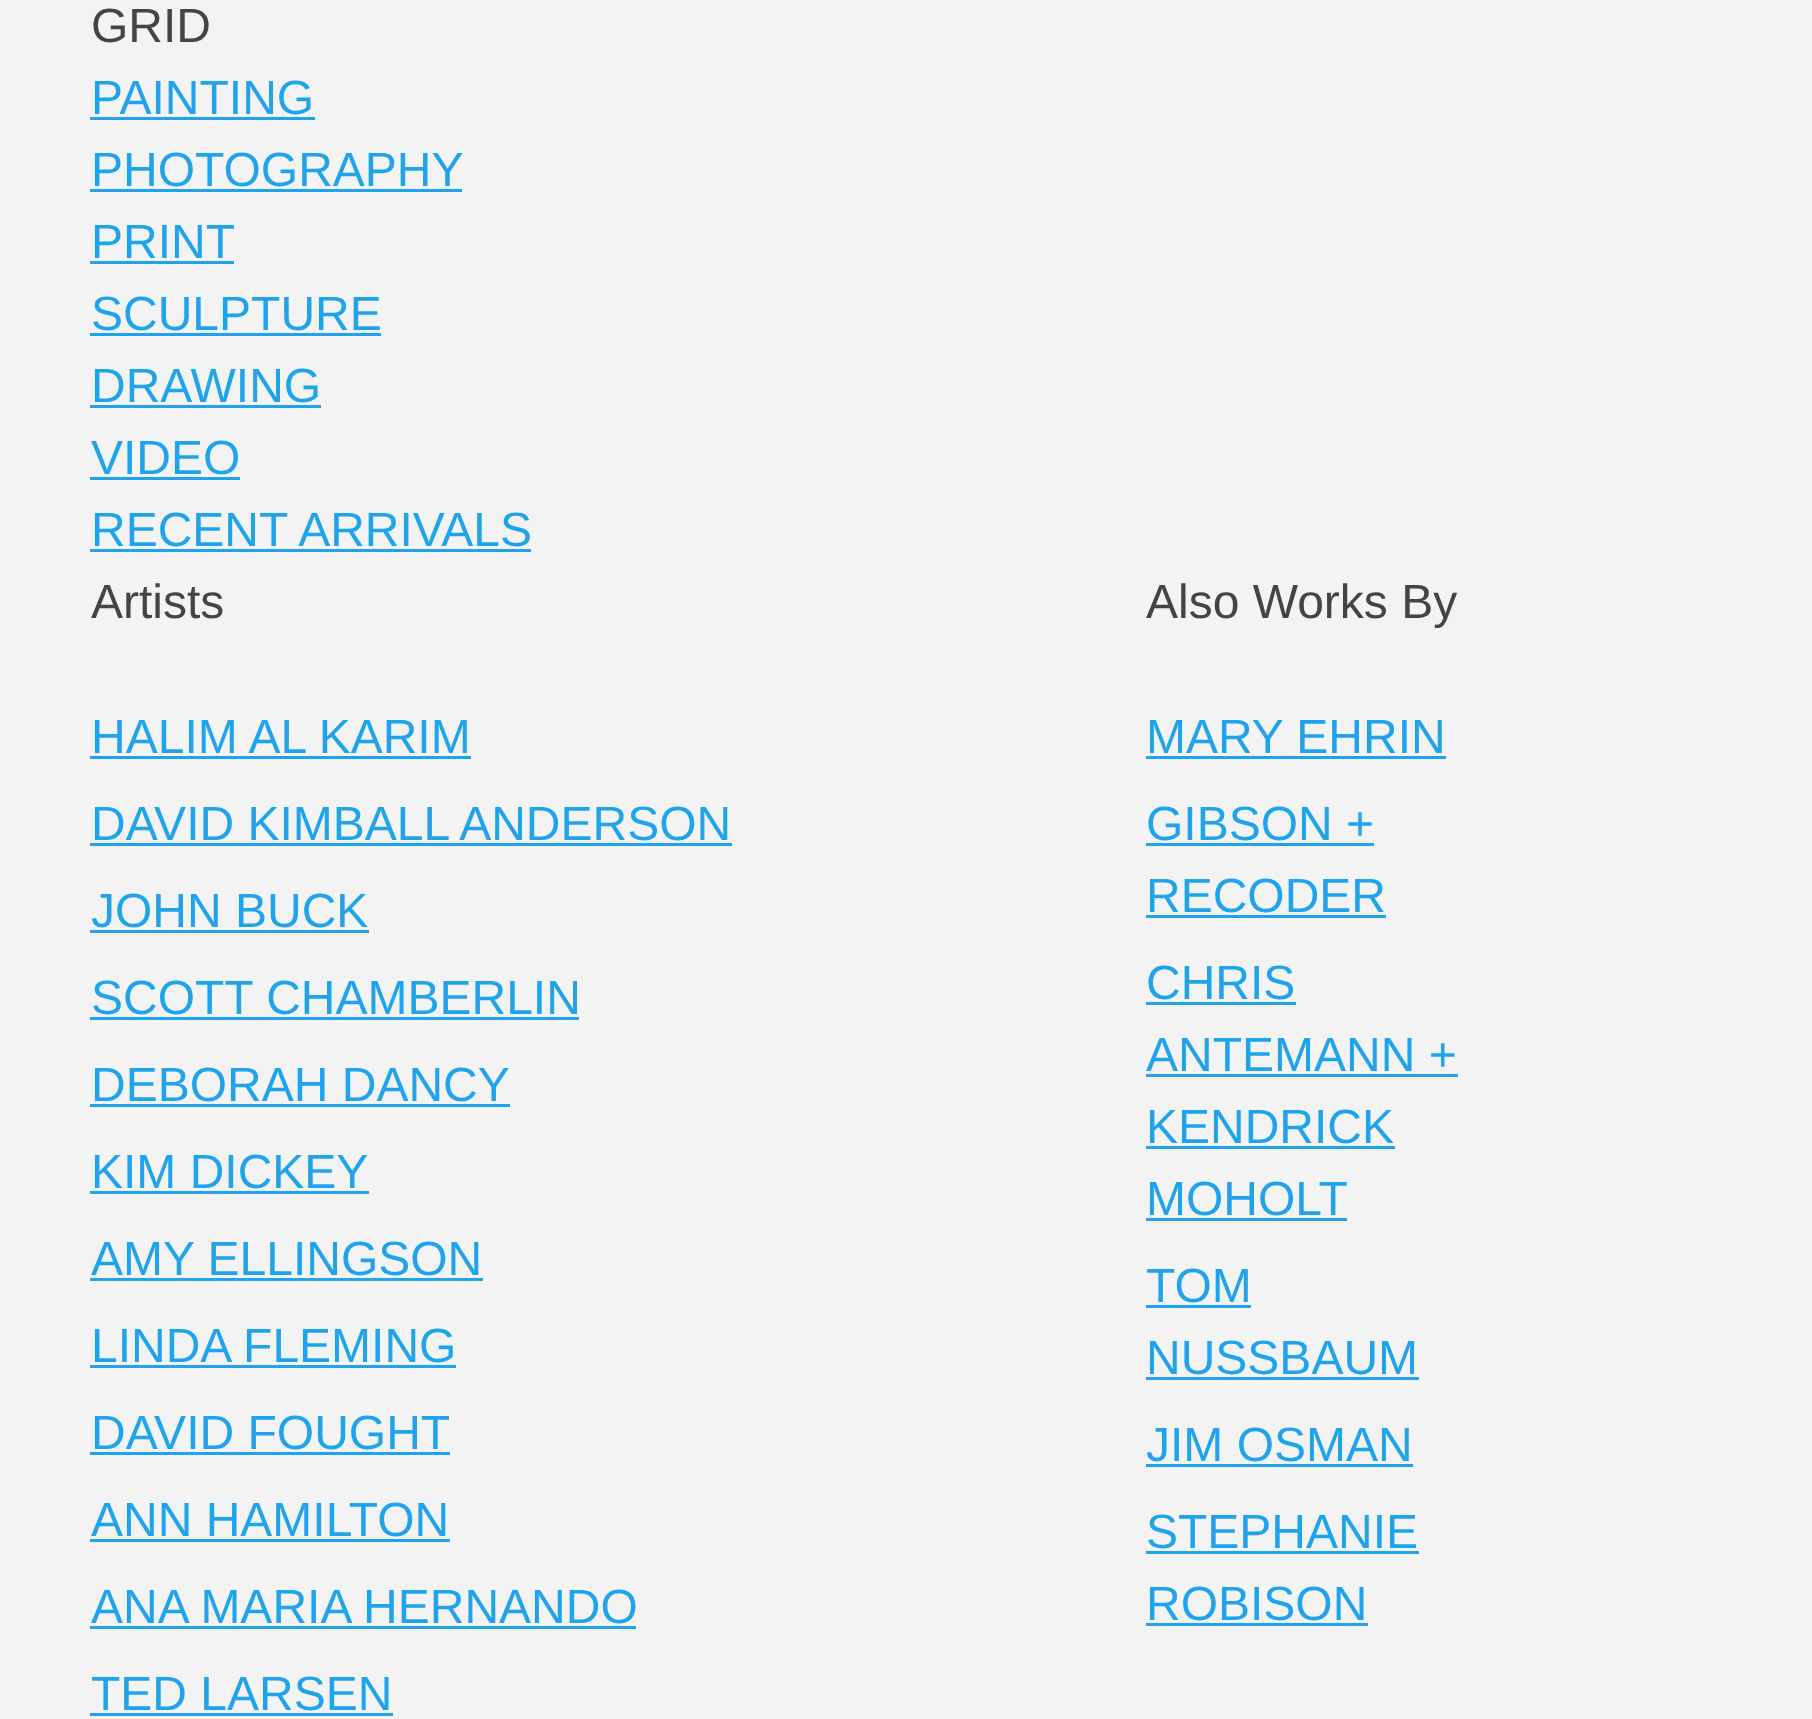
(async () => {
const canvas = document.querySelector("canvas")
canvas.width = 1812
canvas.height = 1719
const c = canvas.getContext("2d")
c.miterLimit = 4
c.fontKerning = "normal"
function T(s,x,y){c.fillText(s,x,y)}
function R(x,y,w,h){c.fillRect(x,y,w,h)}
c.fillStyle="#f3f3f3"
R(0,0,1812,1719)
c.font="48px Liberation Sans"
c.fillStyle="#444"
T("GRID",91,42)
c.fillStyle="#1fa3ec"
T("PAINTING",91,114)
R(90,117,225,3)
T("PHOTOGRAPHY",91,186)
R(90,189,372,3)
T("PRINT",91,258)
R(90,261,144,3)
T("SCULPTURE",91,330)
R(90,333,291,3)
T("DRAWING",91,402)
R(90,405,231,3)
T("VIDEO",91,474)
R(90,477,150,3)
T("RECENT ARRIVALS",91,546)
R(90,549,441,3)
c.fillStyle="#444"
T("Artists",91,618)
c.fillStyle="#1fa3ec"
T("HALIM AL KARIM",91,753)
R(90,756,381,3)
T("DAVID KIMBALL ANDERSON",91,840)
R(90,843,642,3)
T("JOHN BUCK",91,927)
R(90,930,279,3)
T("SCOTT CHAMBERLIN",91,1014)
R(90,1017,489,3)
T("DEBORAH DANCY",91,1101)
R(90,1104,420,3)
T("KIM DICKEY",91,1188)
R(90,1191,279,3)
T("AMY ELLINGSON",91,1275)
R(90,1278,393,3)
T("LINDA FLEMING",91,1362)
R(90,1365,366,3)
T("DAVID FOUGHT",91,1449)
R(90,1452,360,3)
T("ANN HAMILTON",91,1536)
R(90,1539,360,3)
T("ANA MARIA HERNANDO",91,1623)
R(90,1626,546,3)
T("TED LARSEN",91,1710)
R(90,1713,303,3)
c.fillStyle="#444"
T("Also Works By",1146,618)
c.fillStyle="#1fa3ec"
T("MARY EHRIN",1146,753)
R(1146,756,300,3)
T("GIBSON +",1146,840)
R(1146,843,228,3)
T("RECODER",1146,912)
R(1146,915,240,3)
T("CHRIS",1146,999)
R(1146,1002,150,3)
T("ANTEMANN +",1146,1071)
R(1146,1074,312,3)
T("KENDRICK",1146,1143)
R(1146,1146,249,3)
T("MOHOLT",1146,1215)
R(1146,1218,201,3)
T("TOM",1146,1302)
R(1146,1305,105,3)
T("NUSSBAUM",1146,1374)
R(1146,1377,273,3)
T("JIM OSMAN",1146,1461)
R(1146,1464,267,3)
T("STEPHANIE",1146,1548)
R(1146,1551,273,3)
T("ROBISON",1146,1620)
R(1146,1623,222,3)
})()
